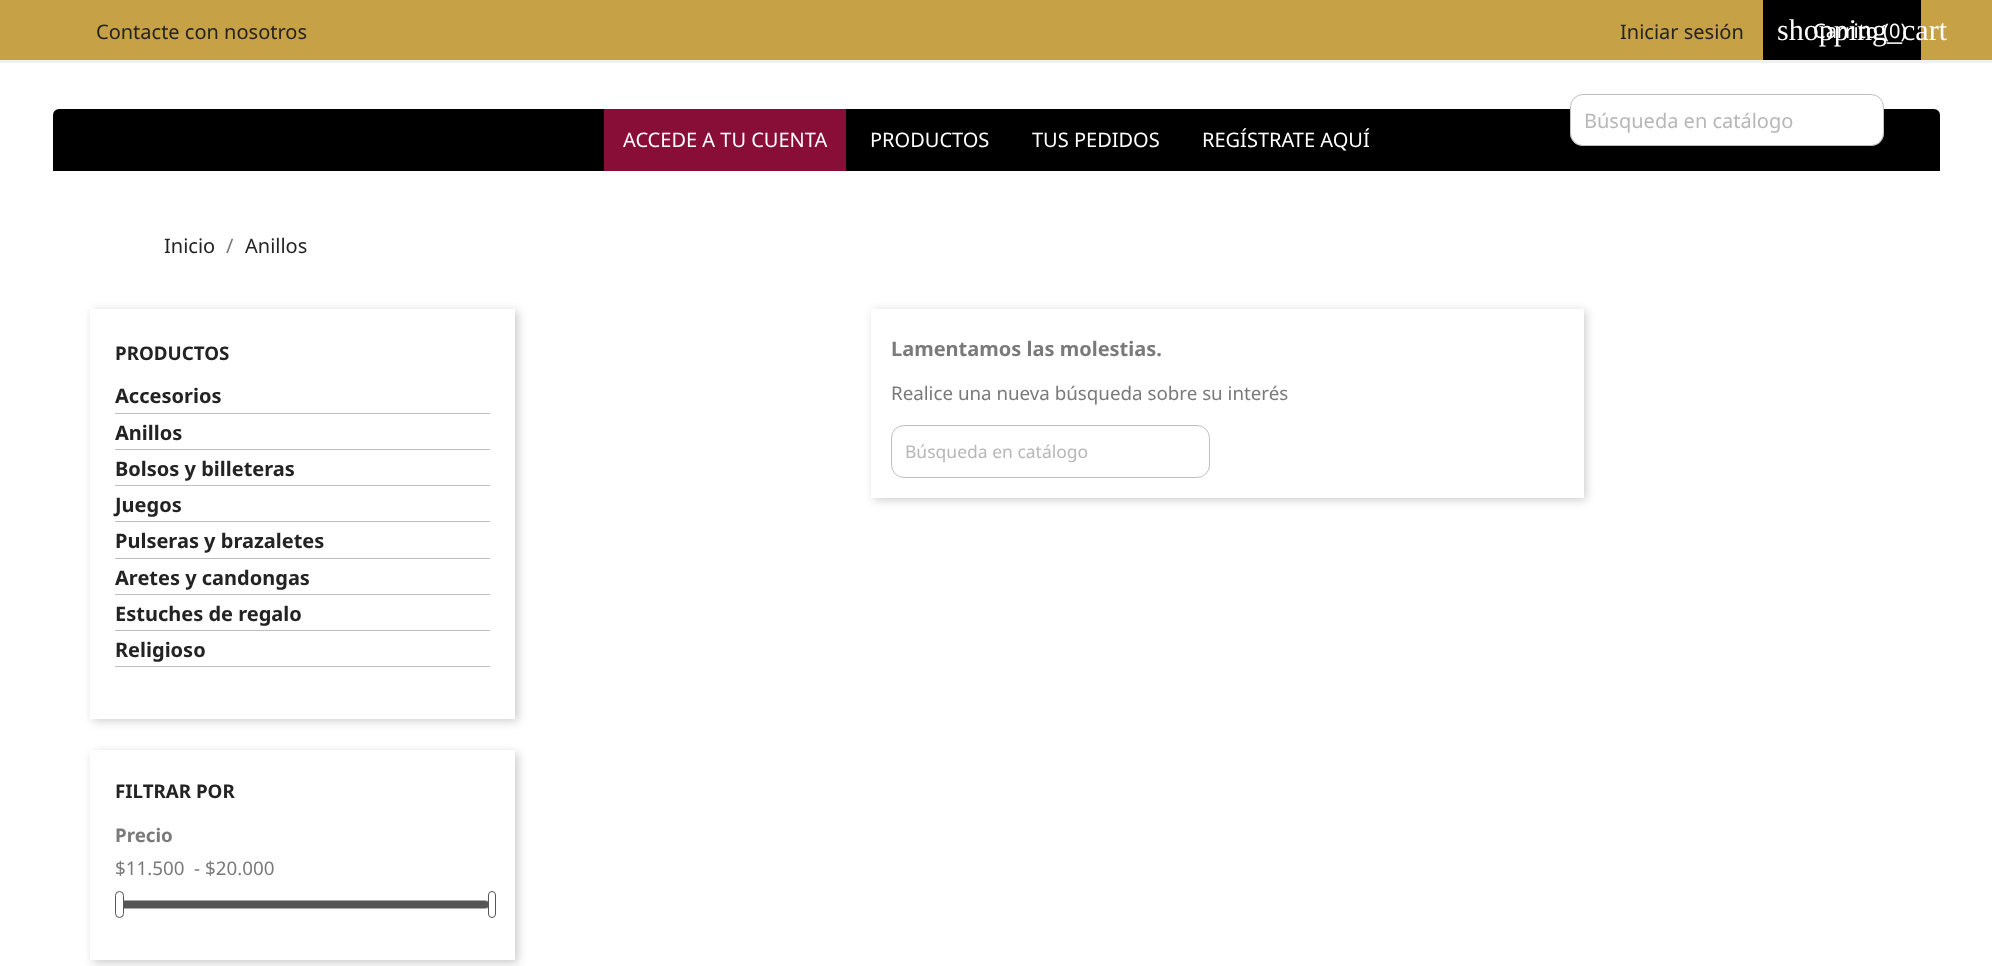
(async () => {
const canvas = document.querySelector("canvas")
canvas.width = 1992
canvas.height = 966
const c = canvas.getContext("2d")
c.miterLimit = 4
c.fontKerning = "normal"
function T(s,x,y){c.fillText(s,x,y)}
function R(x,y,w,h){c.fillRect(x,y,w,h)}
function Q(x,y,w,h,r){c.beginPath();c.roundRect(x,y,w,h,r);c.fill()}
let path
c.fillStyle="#fff"
R(0,0,1992,966)
c.fillStyle="#c7a146"
R(0,0,1992,60)
c.fillStyle="#f1f1f1"
R(0,60,1992,3)
c.font="20px Noto Sans"
c.fillStyle="#232323"
T("Contacte con nosotros",96,39)
T("Iniciar sesión",1620,39)
c.fillStyle="#000"
R(1763,0,158,60)
c.font="30px Liberation Serif"
c.fillStyle="#fff"
T("shopping_cart",1777,40)
c.font="20px Noto Sans"
T("Carrito (0)",1813,38)
c.fillStyle="#000"
c.beginPath()
c.roundRect(53,109,1887,62,[6,6,0,0])
c.fill()
c.fillStyle="#fff"
Q(1570,94,314,52,13)
c.beginPath()
c.roundRect(1570.5,94.5,313,51,12.5)
c.strokeStyle="#00000040"
c.stroke()
c.fillStyle="#b7b7b7"
T("Búsqueda en catálogo",1584,128)
c.fillStyle="#880e37"
R(604,109,242,62)
c.fillStyle="#fff"
T("ACCEDE A TU CUENTA",623,147)
T("PRODUCTOS",870,147)
T("TUS PEDIDOS",1032,147)
T("REGÍSTRATE AQUÍ",1202,147)
c.fillStyle="#232323"
T("Inicio",164,253)
c.fillStyle="#7a7a7a"
T("/",226,253)
c.fillStyle="#232323"
T("Anillos",245,253)
c.fillStyle="#00000033"
c.filter="blur(5px)"
c.beginPath()
c.rect(93,311,425,410)
c.fill()
c.filter="none"
c.fillStyle="#fff"
R(90,309,425,410)
c.font="bold 18.75px Noto Sans"
c.fillStyle="#232323"
T("PRODUCTOS",115,360)
c.fillStyle="#bfbfbf"
R(115,413,375,1)
c.font="bold 20px Noto Sans"
c.fillStyle="#232323"
T("Accesorios",115,403)
c.fillStyle="#bfbfbf"
R(115,449,375,1)
c.fillStyle="#232323"
T("Anillos",115,440)
c.fillStyle="#bfbfbf"
R(115,485,375,1)
c.fillStyle="#232323"
T("Bolsos y billeteras",115,476)
c.fillStyle="#bfbfbf"
R(115,521,375,1)
c.fillStyle="#232323"
T("Juegos",115,512)
c.fillStyle="#bfbfbf"
R(115,558,375,1)
c.fillStyle="#232323"
T("Pulseras y brazaletes",115,548)
c.fillStyle="#bfbfbf"
R(115,594,375,1)
c.fillStyle="#232323"
T("Aretes y candongas",115,585)
c.fillStyle="#bfbfbf"
R(115,630,375,1)
c.fillStyle="#232323"
T("Estuches de regalo",115,621)
c.fillStyle="#bfbfbf"
R(115,666,375,1)
c.fillStyle="#232323"
T("Religioso",115,657)
c.save()
path = new Path2D("M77 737h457v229h-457zm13 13h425v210h-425z")
c.clip(path,"evenodd")
c.fillStyle="#00000033"
c.filter="blur(5px)"
c.beginPath()
c.rect(93,753,425,210)
c.fill()
c.filter="none"
c.restore()
c.font="bold 18.75px Noto Sans"
T("FILTRAR POR",115,798)
c.fillStyle="#7a7a7a"
T("Precio",115,842)
c.font="18.75px Noto Sans"
T("$11.500  - $20.000",115,875)
c.beginPath()
c.roundRect(115.5,900.5,374,8,4)
c.strokeStyle="#aaa"
c.stroke()
c.fillStyle="#555"
Q(116,901,373,7,3.5)
c.fillStyle="#fff"
c.beginPath()
c.roundRect(115.5,891.5,8,26,4)
c.fill()
c.strokeStyle="#555"
c.stroke()
c.beginPath()
c.roundRect(488.5,891.5,7,26,3.5)
c.fill()
c.stroke()
c.fillStyle="#00000033"
c.filter="blur(5px)"
c.beginPath()
c.rect(874,311,712,189)
c.fill()
c.filter="none"
c.fillStyle="#fff"
R(871,309,713,189)
c.font="bold 20px Noto Sans"
c.fillStyle="#7a7a7a"
T("Lamentamos las molestias.",891,356)
c.font="18.75px Noto Sans"
T("Realice una nueva búsqueda sobre su interés",891,400)
c.beginPath()
c.roundRect(891.5,425.5,318,52,12.5)
c.strokeStyle="#bfbfbf"
c.stroke()
c.font="17.5px Noto Sans"
c.fillStyle="#b7b7b7"
T("Búsqueda en catálogo",905,458)
})()
